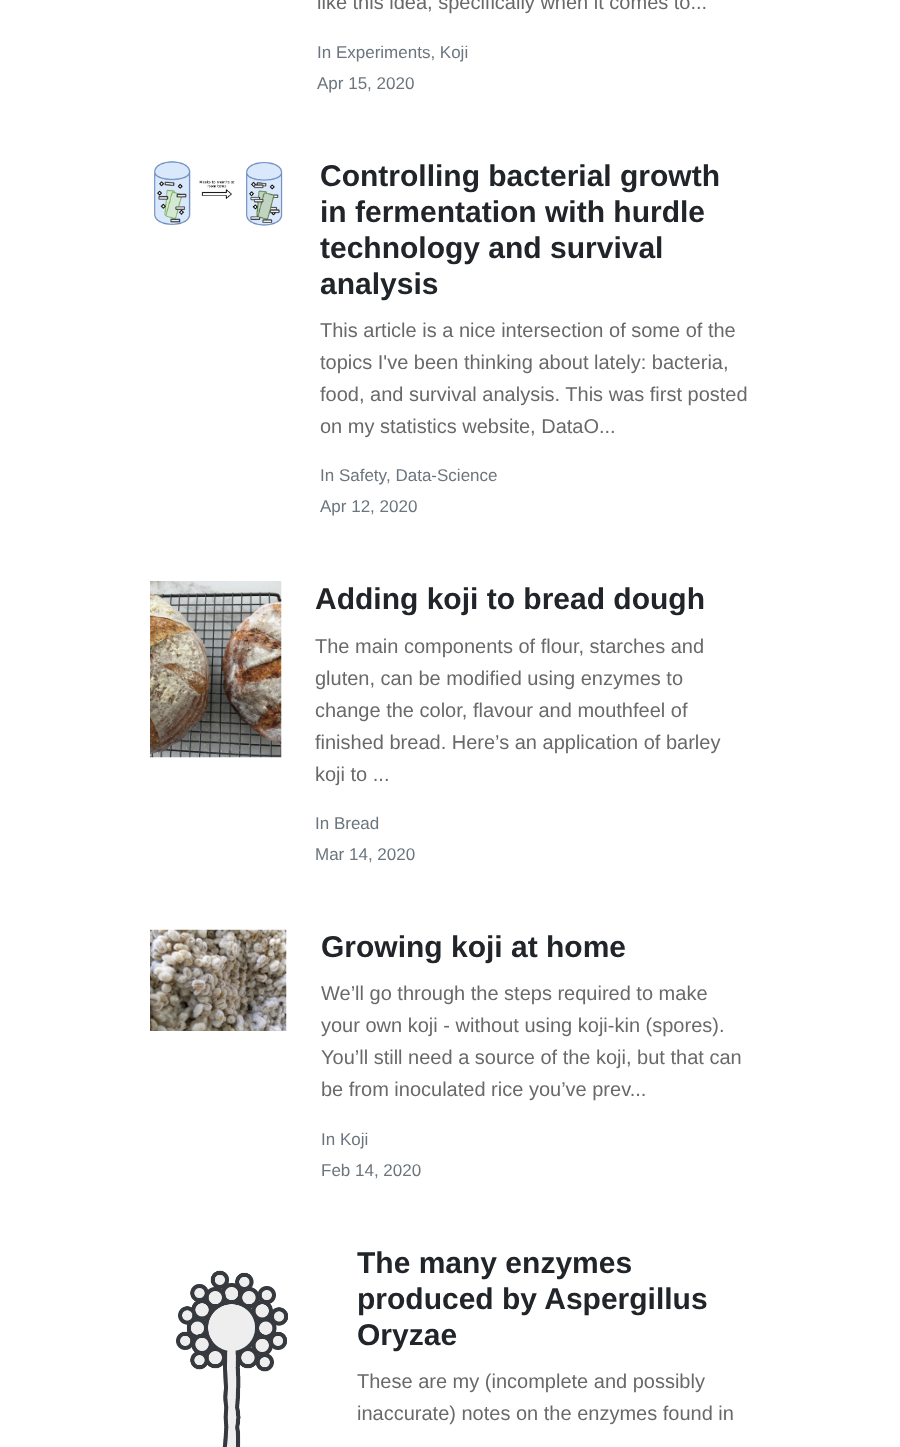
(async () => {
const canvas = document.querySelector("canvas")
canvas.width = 900
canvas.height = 1447
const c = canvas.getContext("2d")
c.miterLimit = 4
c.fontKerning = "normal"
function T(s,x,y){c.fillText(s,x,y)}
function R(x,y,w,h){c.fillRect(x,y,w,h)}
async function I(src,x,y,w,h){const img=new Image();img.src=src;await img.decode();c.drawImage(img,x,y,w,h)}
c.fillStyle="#fff"
R(0,0,900,1447)
c.font="20px Liberation Sans"
c.fillStyle="#696969"
T("like this idea, specifically when it comes to...",317,9)
c.font="17px Liberation Sans"
c.fillStyle="#6c757d"
T("In Experiments, Koji",317,58)
T("Apr 15, 2020",317,89)
await I("1.png",154,161,129,65)
c.font="bold 30px Liberation Sans"
c.fillStyle="#212529"
T("Controlling bacterial growth",320,186)
T("in fermentation with hurdle",320,222)
T("technology and survival",320,258)
T("analysis",320,294)
c.font="20px Liberation Sans"
c.fillStyle="#696969"
T("This article is a nice intersection of some of the",320,337)
T("topics I've been thinking about lately: bacteria,",320,369)
T("food, and survival analysis. This was first posted",320,401)
T("on my statistics website, DataO...",320,433)
c.font="17px Liberation Sans"
c.fillStyle="#6c757d"
T("In Safety",320,481)
T(", Data-Science",386,481)
T("Apr 12, 2020",320,512)
await I("2.png",150,581,132,177)
c.font="bold 30px Liberation Sans"
c.fillStyle="#212529"
T("Adding koji to bread dough",315,609)
c.font="20px Liberation Sans"
c.fillStyle="#696969"
T("The main components of flour, starches and",315,653)
T("gluten, can be modified using enzymes to",315,685)
T("change the color, flavour and mouthfeel of",315,717)
T("finished bread. Here’s an application of barley",315,749)
T("koji to ...",315,781)
c.font="17px Liberation Sans"
c.fillStyle="#6c757d"
T("In Bread",315,829)
T("Mar 14, 2020",315,860)
await I("3.png",150,929,137,102)
c.font="bold 30px Liberation Sans"
c.fillStyle="#212529"
T("Growing koji at home",321,957)
c.font="20px Liberation Sans"
c.fillStyle="#696969"
T("We’ll go through the steps required to make",321,1000)
T("your own koji - without using koji-kin (spores).",321,1032)
T("You’ll still need a source of the koji, but that can",321,1064)
T("be from inoculated rice you’ve prev...",321,1096)
c.font="17px Liberation Sans"
c.fillStyle="#6c757d"
T("In Koji",321,1145)
T("Feb 14, 2020",321,1176)
await I("4.png",176,1270,112,177)
c.font="bold 30px Liberation Sans"
c.fillStyle="#212529"
T("The many enzymes",357,1273)
T("produced by Aspergillus",357,1309)
T("Oryzae",357,1345)
c.font="20px Liberation Sans"
c.fillStyle="#696969"
T("These are my (incomplete and possibly",357,1388)
T("inaccurate) notes on the enzymes found in",357,1420)
})()
